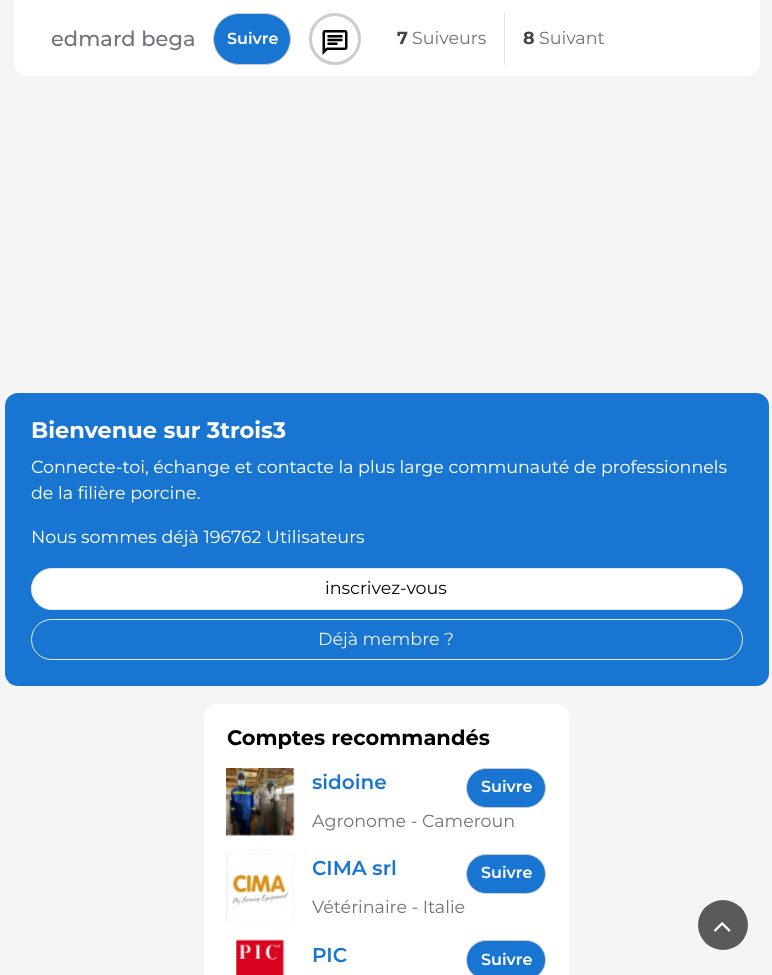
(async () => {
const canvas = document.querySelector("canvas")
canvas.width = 772
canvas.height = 975
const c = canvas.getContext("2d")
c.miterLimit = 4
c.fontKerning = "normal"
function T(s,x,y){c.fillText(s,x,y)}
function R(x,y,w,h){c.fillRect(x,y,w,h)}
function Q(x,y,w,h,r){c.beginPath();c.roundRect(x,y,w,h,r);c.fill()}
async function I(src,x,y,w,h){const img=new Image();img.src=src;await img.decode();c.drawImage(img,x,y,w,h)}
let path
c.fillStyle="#f5f5f5"
R(0,0,772,975)
c.fillStyle="#fff"
path = new Path2D("M14-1h746v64c0 7-6 13-13 13h-720c-7 0-13-6-13-13z")
c.fill(path)
c.font="500 21px Montserrat"
c.fillStyle="#6c757d"
T("edmard bega",51,46)
c.fillStyle="#1876d2"
c.beginPath()
c.roundRect(213.5,13.5,77,51,25.5)
c.fill()
c.strokeStyle="#ccc"
c.stroke()
c.font="600 16px Montserrat"
c.fillStyle="#fff"
T("Suivre",227,44)
c.beginPath()
c.arc(335,39,24.5,0,7)
c.lineWidth=3
c.stroke()
await I("1.png",322,30,26,25)
c.font="bold 17.5px Montserrat"
c.fillStyle="#444"
T("7",397,44)
c.font="17.5px Montserrat"
c.fillStyle="#6c757d"
T("Suiveurs",412,44)
c.fillStyle="#dee2e6"
R(504,13,1,52)
c.font="bold 17.5px Montserrat"
c.fillStyle="#444"
T("8",523,44)
c.font="17.5px Montserrat"
c.fillStyle="#6c757d"
T("Suivant",539,44)
c.fillStyle="#1876d2"
Q(5,393,764,293,13)
c.font="bold 22.5px Montserrat"
c.fillStyle="#fff"
T("Bienvenue sur 3trois3",31,438)
c.font="17.5px Montserrat"
T("Connecte-toi, échange et contacte la plus large communauté de professionnels",31,473)
T("de la filière porcine.",31,499)
T("Nous sommes déjà 196762 Utilisateurs",31,543)
c.beginPath()
c.roundRect(31.5,568.5,711,41,20.5)
c.fill()
c.strokeStyle="#e9ecef"
c.lineWidth=1
c.stroke()
c.fillStyle="#000"
T("inscrivez-vous",325,594)
c.beginPath()
c.roundRect(31.5,619.5,711,40,20)
c.stroke()
c.fillStyle="#e9ecef"
T("Déjà membre ?",318,645)
c.fillStyle="#fff"
Q(204,704,365,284,13)
c.font="bold 21px Montserrat"
c.fillStyle="#000"
T("Comptes recommandés",227,745)
await I("2.png",226,768,69,68)
c.font="600 20px Montserrat"
c.fillStyle="#1876d2"
T("sidoine",312,789)
c.beginPath()
c.roundRect(466.5,768.5,79,39,19.5)
c.fill()
c.strokeStyle="#ccc"
c.stroke()
c.font="600 16px Montserrat"
c.fillStyle="#fff"
T("Suivre",481,792)
c.font="17.5px Montserrat"
c.fillStyle="#737373"
T("Agronome - Cameroun",312,827)
await I("3.png",226,854,68,68)
c.font="600 20px Montserrat"
c.fillStyle="#1876d2"
T("CIMA srl",312,875)
c.beginPath()
c.roundRect(466.5,854.5,79,39,19.5)
c.fill()
c.stroke()
c.font="600 16px Montserrat"
c.fillStyle="#fff"
T("Suivre",481,878)
c.font="17.5px Montserrat"
c.fillStyle="#737373"
T("Vétérinaire - Italie",312,913)
await I("4.png",236,939,49,36)
c.font="600 20px Montserrat"
c.fillStyle="#1876d2"
T("PIC",312,962)
c.beginPath()
c.roundRect(466.5,940.5,79,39,19.5)
c.fill()
c.stroke()
c.font="600 16px Montserrat"
c.fillStyle="#fff"
T("Suivre",481,965)
c.fillStyle="#5a5a5a"
c.beginPath()
c.arc(723,925,25,0,7)
c.fill()
await I("5.png",713,922,18,10)
})()
